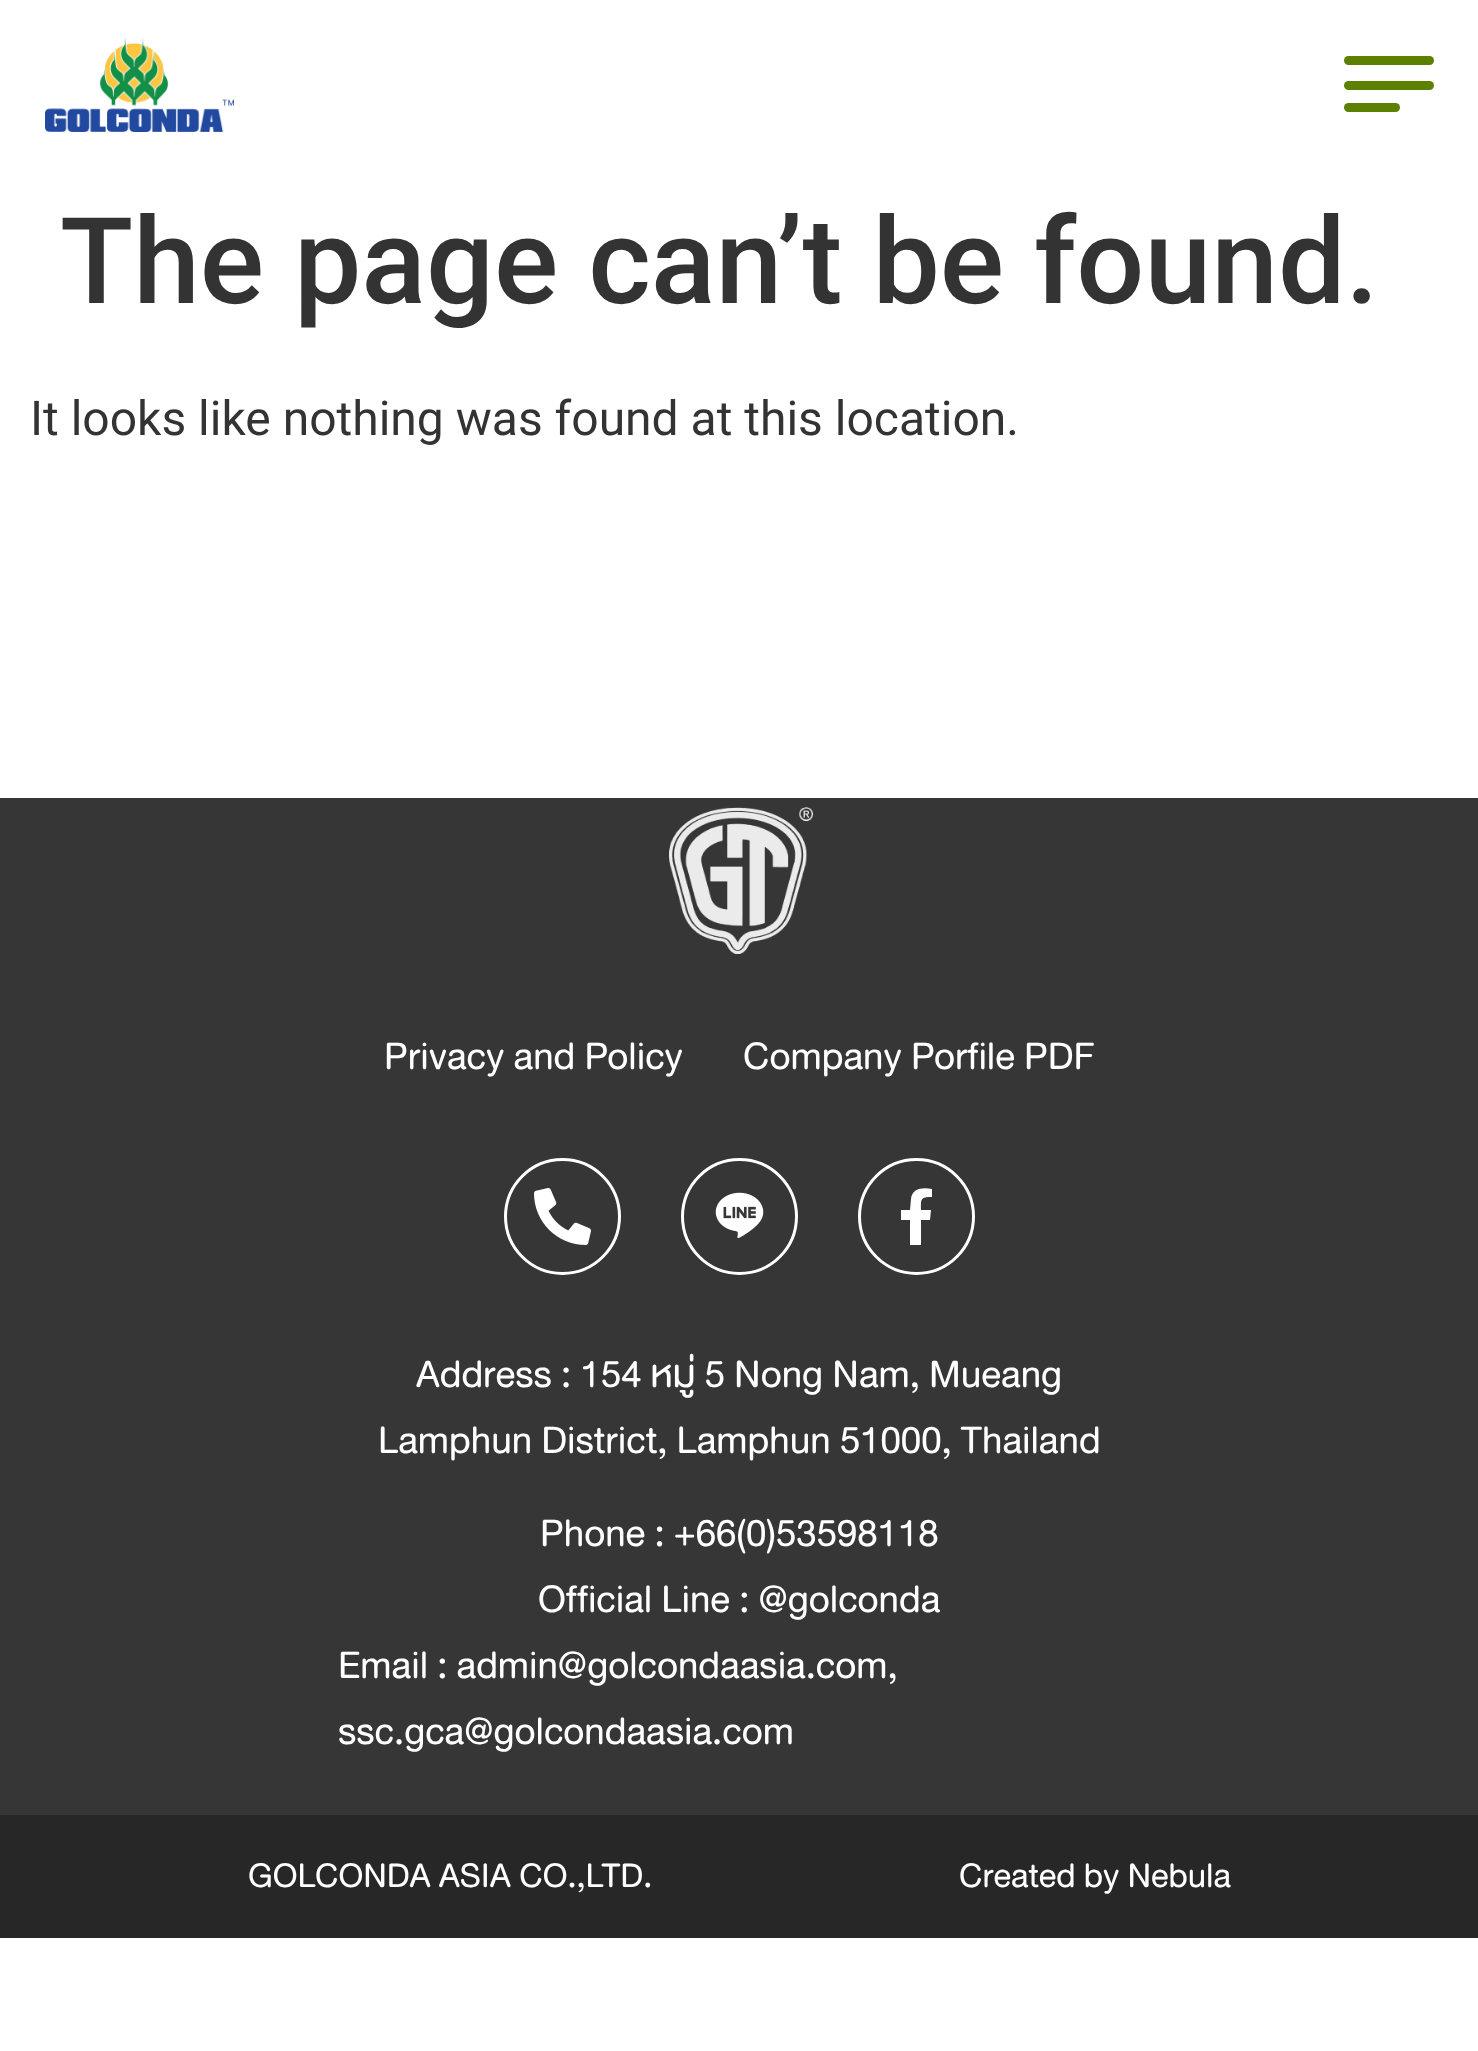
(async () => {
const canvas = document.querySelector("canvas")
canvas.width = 1478
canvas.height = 2051
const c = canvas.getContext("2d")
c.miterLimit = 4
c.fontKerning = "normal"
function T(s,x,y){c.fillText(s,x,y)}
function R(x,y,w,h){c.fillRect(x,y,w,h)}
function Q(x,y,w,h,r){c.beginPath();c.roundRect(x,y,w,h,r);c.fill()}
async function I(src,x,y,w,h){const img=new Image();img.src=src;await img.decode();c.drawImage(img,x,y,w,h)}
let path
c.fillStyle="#fff"
R(0,0,1478,2051)
await I("1.png",45,37,189,95)
c.fillStyle="#5c8000"
Q(1344,56,90,9,4.5)
Q(1344,81,90,9,4.5)
Q(1344,103,56,9,4.5)
c.font="500 120px Roboto"
c.fillStyle="#333"
T("The page can’t be found.",60,303)
c.font="48px Roboto"
T("It looks like nothing was found at this location.",30,435)
c.fillStyle="#363636"
R(0,798,1478,1017)
await I("2.png",669,807,144,147)
c.font="54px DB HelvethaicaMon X"
c.fillStyle="#fff"
T("Privacy and Policy",384,1069)
T("Company Porfile PDF",743,1069)
c.beginPath()
c.arc(562.5,1216.5,57,0,7)
c.strokeStyle="#fff"
c.lineWidth=3
c.stroke()
await I("3.png",534,1188,57,57)
c.beginPath()
c.arc(739.5,1216.5,57,0,7)
c.stroke()
await I("4.png",715,1192,49,46)
c.beginPath()
c.arc(916.5,1216.5,57,0,7)
c.stroke()
path = new Path2D("M930 1220l1-10h-10c0-11-1-13 11-13v-8c-9-2-20-1-21 10l-1 11h-9v10h9v25h11v-25z")
c.fill(path)
T("Address : 154 หมู่ 5 Nong Nam, Mueang",416,1387)
T("Lamphun District, Lamphun 51000, Thailand",378,1453)
T("Phone : +66(0)53598118",540,1546)
T("Official Line : @golconda",538,1612)
T("Email : admin@golcondaasia.com,",338,1678)
T("ssc.gca@golcondaasia.com",338,1744)
c.fillStyle="#272727"
R(0,1815,1478,123)
c.font="48px DB HelvethaicaMon X"
c.fillStyle="#fff"
T("GOLCONDA ASIA CO.,LTD.",248,1887)
T("Created by Nebula",959,1887)
})()
